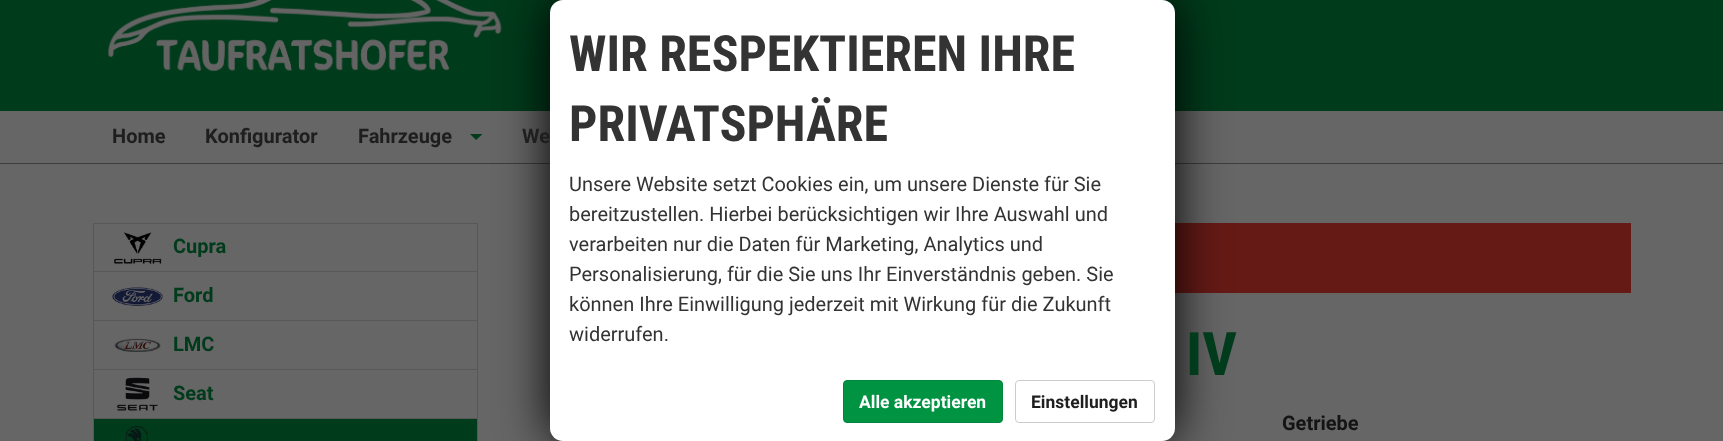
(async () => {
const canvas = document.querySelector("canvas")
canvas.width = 1723
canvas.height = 441
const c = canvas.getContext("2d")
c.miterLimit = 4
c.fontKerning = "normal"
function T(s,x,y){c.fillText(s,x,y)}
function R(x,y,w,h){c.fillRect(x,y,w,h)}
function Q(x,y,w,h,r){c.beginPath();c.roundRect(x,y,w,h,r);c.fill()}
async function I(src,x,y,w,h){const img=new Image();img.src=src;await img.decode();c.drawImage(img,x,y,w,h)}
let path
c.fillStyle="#666"
R(0,0,1723,441)
c.fillStyle="#003b1b"
R(0,0,1723,111)
await I("1.png",108,0,394,72)
c.fillStyle="#3d3d3d"
R(0,163,1723,1)
c.fillStyle="#003b1a"
path = new Path2D("M470 134h12.5l-6.5 6z")
c.fill(path)
c.strokeStyle="#585858"
c.strokeRect(93.5,223.5,384,49)
c.fillStyle="#666"
R(94,272,383,1)
c.strokeRect(93.5,271.5,384,49)
c.strokeRect(93.5,320.5,384,49)
c.strokeRect(93.5,369.5,384,49)
c.fillStyle="#003b1b"
c.beginPath()
c.rect(93.5,418.5,384,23)
c.fill()
c.stroke()
c.fillStyle="#661a16"
R(1175,223,456,70)
c.fillStyle="#000"
c.filter="blur(25px)"
c.beginPath()
c.roundRect(550,0,625,441,13)
c.fill()
c.filter="none"
c.fillStyle="#fff"
Q(550,0,625,441,13)
c.font="bold 50px Roboto Condensed"
c.fillStyle="#333"
T("WIR RESPEKTIEREN IHRE",569,71)
T("PRIVATSPHÄRE",569,141)
c.font="20px Roboto"
T("Unsere Website setzt Cookies ein, um unsere Dienste für Sie",569,191)
T("bereitzustellen. Hierbei berücksichtigen wir Ihre Auswahl und",569,221)
T("verarbeiten nur die Daten für Marketing, Analytics und",569,251)
T("Personalisierung, für die Sie uns Ihr Einverständnis geben. Sie",569,281)
T("können Ihre Einwilligung jederzeit mit Wirkung für die Zukunft",569,311)
T("widerrufen.",569,341)
c.fillStyle="#009342"
c.beginPath()
c.roundRect(843.5,380.5,159,42,3.5)
c.fill()
c.strokeStyle="#00863c"
c.stroke()
c.font="bold 17.5px Roboto"
c.fillStyle="#fff"
T("Alle akzeptieren",859,408)
c.beginPath()
c.roundRect(1015.5,380.5,139,42,3.5)
c.strokeStyle="#ccc"
c.stroke()
c.fillStyle="#1e1e1e"
T("Einstellungen",1031,408)
c.font="bold 20px Roboto"
T("Home",112,143)
T("Konfigurator",205,143)
T("Fahrzeuge",358,143)
T("We",522,143)
await I("2.png",114,232,48,32)
c.fillStyle="#003b1b"
T("Cupra",173,253)
await I("3.png",112,287,51,19)
T("Ford",173,302)
await I("4.png",114,338,47,14)
T("LMC",173,351)
await I("5.png",117,377,41,34)
T("Seat",173,400)
await I("6.png",125,426,23,15)
c.font="bold 60px Roboto Condensed"
T("IV",1186,375)
c.font="bold 20px Roboto"
c.fillStyle="#141414"
T("Getriebe",1282,430)
})()
